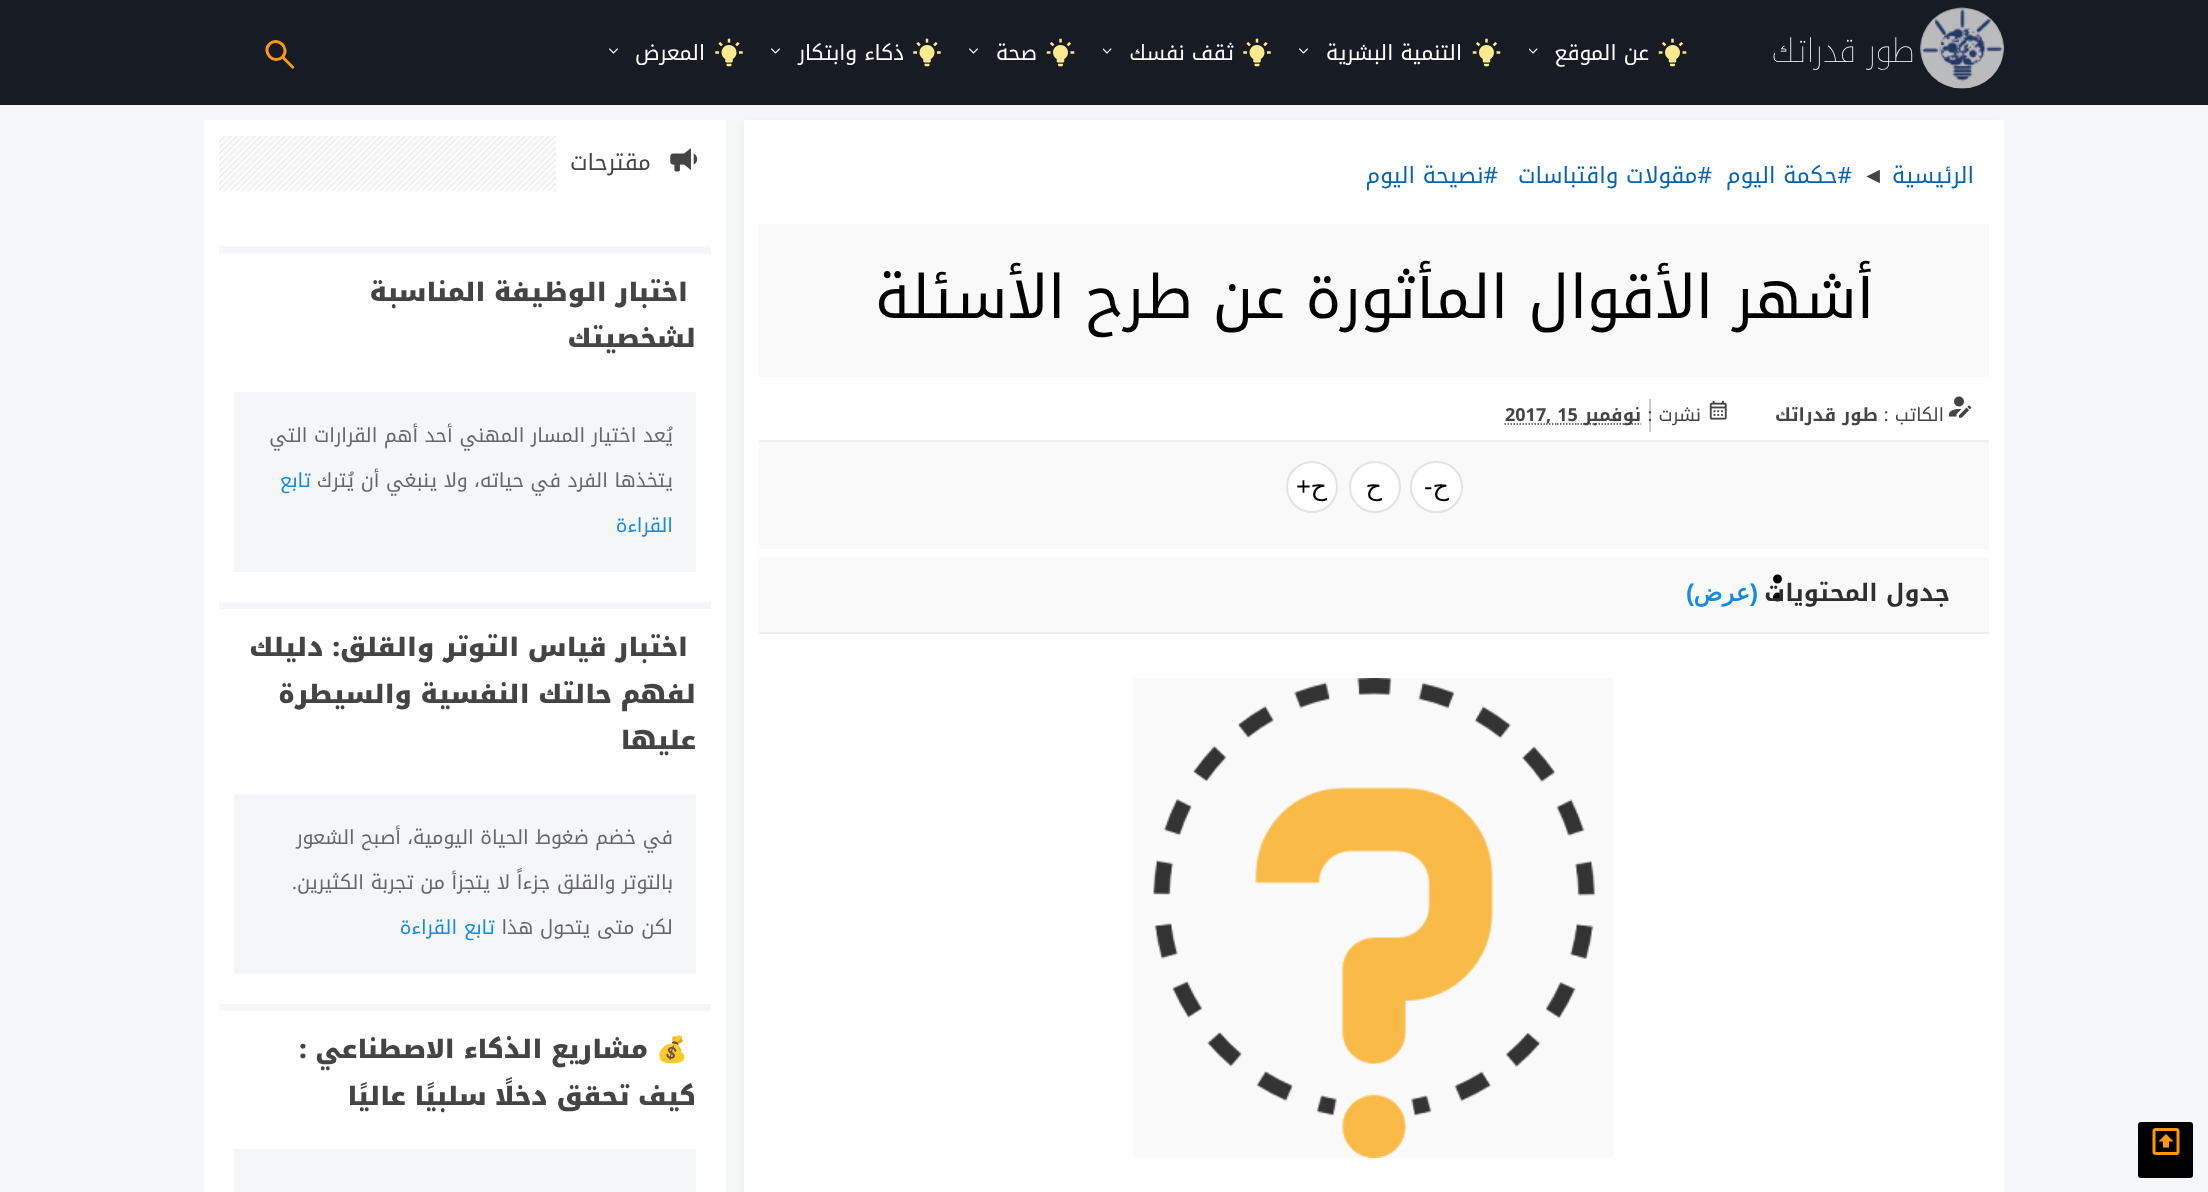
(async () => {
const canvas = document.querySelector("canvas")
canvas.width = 2208
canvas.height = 1192
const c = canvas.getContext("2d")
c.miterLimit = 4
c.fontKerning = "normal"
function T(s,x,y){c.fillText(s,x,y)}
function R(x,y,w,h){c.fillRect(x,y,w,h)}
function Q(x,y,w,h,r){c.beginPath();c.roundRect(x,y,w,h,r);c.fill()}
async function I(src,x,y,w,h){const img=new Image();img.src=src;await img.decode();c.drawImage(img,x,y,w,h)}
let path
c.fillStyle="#f5f6f7"
R(0,0,2208,1192)
c.fillStyle="#171c24"
R(0,0,2208,105)
await I("1.png",1920,7,84,82)
c.direction="rtl"
c.font="100 32.5px Noto Kufi Arabic"
c.fillStyle="#fff"
T("طور قدراتك",1914,62)
await I("2.png",1658,38,29,29)
c.font="21px Noto Kufi Arabic"
T("عن الموقع",1649,60)
await I("3.png",1529,48,9,6)
await I("2.png",1472,38,29,29)
T("التنمية البشرية",1462,60)
await I("4.png",1299,48,9,6)
await I("5.png",1243,38,28,29)
T("ثقف نفسك",1234,60)
await I("3.png",1103,48,9,6)
await I("2.png",1046,38,29,29)
T("صحة",1037,60)
await I("4.png",969,48,9,6)
await I("5.png",913,38,28,29)
T("ذكاء وابتكار",904,60)
await I("4.png",771,48,9,6)
await I("5.png",715,38,28,29)
T("المعرض",705,60)
await I("4.png",609,48,9,6)
path = new Path2D("M269.5 44c8.5-8 21 4.5 13 13c-8.5 8-21-4.5-13-13z")
c.strokeStyle="#ff990c"
c.lineWidth=3
c.stroke(path)
c.fillStyle="#ff990c"
path = new Path2D("M281.5 58l2-2l10.5 10.5c1 1.5-1 3-2 2z")
c.fill(path)
c.save()
c.beginPath()
c.rect(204,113,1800,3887)
c.clip()
c.fillStyle="#0000000d"
c.filter="blur(4.5px)"
c.beginPath()
c.rect(744,123,1260,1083)
c.fill()
c.filter="none"
c.restore()
c.fillStyle="#fff"
R(744,120,1260,1072)
c.font="22.5px Noto Kufi Arabic"
c.fillStyle="#0463b3"
T("الرئيسية",1974,183)
c.direction="ltr"
c.font="22.5px Liberation Sans"
c.fillStyle="#444"
T("◄",1862,183)
c.direction="rtl"
c.font="22.5px Noto Kufi Arabic"
c.fillStyle="#0463b3"
T("#حكمة اليوم",1852,183)
T("#مقولات واقتباسات",1712,183)
T("#نصيحة اليوم",1498,183)
c.fillStyle="#f9f9f9"
R(759,224,1230,153)
c.font="60px Noto Kufi Arabic"
c.fillStyle="#000"
T("أشهر الأقوال المأثورة عن طرح الأسئلة",1874,318)
c.fillStyle="#efefef"
R(759,440,1230,2)
await I("6.png",1949,396,23,22)
c.font="18px Noto Kufi Arabic"
c.fillStyle="#444"
T("الكاتب :",1944,421)
c.font="bold 18px Noto Kufi Arabic"
T("طور قدراتك",1878,421)
await I("7.png",1709,400,18,20)
c.fillStyle="#ccc"
R(1649,399,2,33)
c.font="18px Noto Kufi Arabic"
c.fillStyle="#444"
T("نشرت :",1701,421)
path = new Path2D("M1577.5 424h63.5")
c.strokeStyle="#444"
c.lineWidth=1.5
c.setLineDash([1.5,1.5])
c.stroke(path)
c.font="bold 18px Noto Kufi Arabic"
T("نوفمبر",1641,421)
path = new Path2D("M1546 424h11")
c.stroke(path)
c.direction="ltr"
T(", 15",1546,421)
path = new Path2D("M1504.5 424h41.5")
c.stroke(path)
path = new Path2D("M1557 424h20.5")
c.stroke(path)
T("2017",1505,421)
c.fillStyle="#f9f9f9"
R(759,442,1230,107)
c.fillStyle="#fff"
c.beginPath()
c.roundRect(1411,462,51,50,25)
c.fill()
c.strokeStyle="#e3e3e3"
c.lineWidth=2
c.setLineDash([])
c.stroke()
c.direction="rtl"
c.font="25.5px DejaVu Sans"
c.fillStyle="#000"
T("ح",1449,495)
c.direction="ltr"
c.font="25.5px Liberation Sans"
T("-",1424,495)
c.fillStyle="#fff"
c.beginPath()
c.arc(1375,487,25,0,7)
c.fill()
c.stroke()
c.direction="rtl"
c.font="25.5px DejaVu Sans"
c.fillStyle="#000"
T("ح",1382,495)
c.fillStyle="#fff"
c.beginPath()
c.arc(1312,487,25,0,7)
c.fill()
c.stroke()
c.fillStyle="#000"
T("ح",1327,495)
c.direction="ltr"
c.font="25.5px Liberation Sans"
T("+",1296,495)
c.fillStyle="#f9f9f9"
R(759,557,1230,75)
c.fillStyle="#efefef"
R(759,632,1230,2)
path = new Path2D("M1777.5 579v28.5")
c.strokeStyle="#000"
c.lineWidth=9
c.lineCap="round"
c.setLineDash([0,18])
c.stroke(path)
c.direction="rtl"
c.font="bold 24px Noto Kufi Arabic"
c.fillStyle="#2e2e2e"
T("جدول المحتويات",1950,601)
c.font="bold 24px Liberation Sans"
c.fillStyle="#138be6"
T("(",1758,601)
c.font="bold 24px DejaVu Sans"
T("عرض",1750,601)
c.font="bold 24px Liberation Sans"
T(")",1694,601)
c.fillStyle="#fafafa"
R(1134,678,480,480)
await I("8.png",1153,678,442,480)
c.fillStyle="#fff"
R(204,120,522,1072)
await I("9.png",670,148,28,24)
c.font="22.5px Noto Kufi Arabic"
c.fillStyle="#444"
T("مقترحات",651,170)
await I("10.png",219,136,337,56)
c.fillStyle="#f5f6f7"
R(219,246,492,8)
c.font="900 25.5px Noto Kufi Arabic"
c.fillStyle="#444"
T("اختبار الوظيفة المناسبة",688,301)
T("لشخصيتك",696,347)
c.fillStyle="#f5f6f7"
R(234,392,462,180)
c.font="19.5px Noto Kufi Arabic"
c.fillStyle="#666"
T("يُعد اختيار المسار المهني أحد أهم القرارات التي",673,442)
T("يتخذها الفرد في حياته، ولا ينبغي أن يُترك",673,487)
c.fillStyle="#138be6"
T("تابع",311,487)
T("القراءة",673,532)
c.fillStyle="#f5f6f7"
R(219,602,492,7)
c.font="900 25.5px Noto Kufi Arabic"
c.fillStyle="#444"
T("اختبار قياس التوتر والقلق: دليلك",688,656)
T("لفهم حالتك النفسية والسيطرة",696,703)
T("عليها",696,749)
c.fillStyle="#f5f6f7"
R(234,794,462,180)
c.font="19.5px Noto Kufi Arabic"
c.fillStyle="#666"
T("في خضم ضغوط الحياة اليومية، أصبح الشعور",673,844)
T("بالتوتر والقلق جزءاً لا يتجزأ من تجربة الكثيرين.",673,889)
T("لكن متى يتحول هذا",673,934)
c.fillStyle="#138be6"
T("تابع القراءة",495,934)
c.fillStyle="#f5f6f7"
R(219,1004,492,7)
c.font="bold 25.5px Noto Color Emoji"
c.fillStyle="#444"
T("💰",688,1058)
c.font="900 25.5px Noto Kufi Arabic"
T("مشاريع الذكاء الاصطناعي :",648,1058)
T("كيف تحقق دخلًا سلبيًا عاليًا",696,1105)
c.fillStyle="#f5f6f7"
R(234,1149,462,43)
c.fillStyle="#000"
Q(2138,1122,55,56,3)
await I("11.png",2152,1128,28,27)
})()
